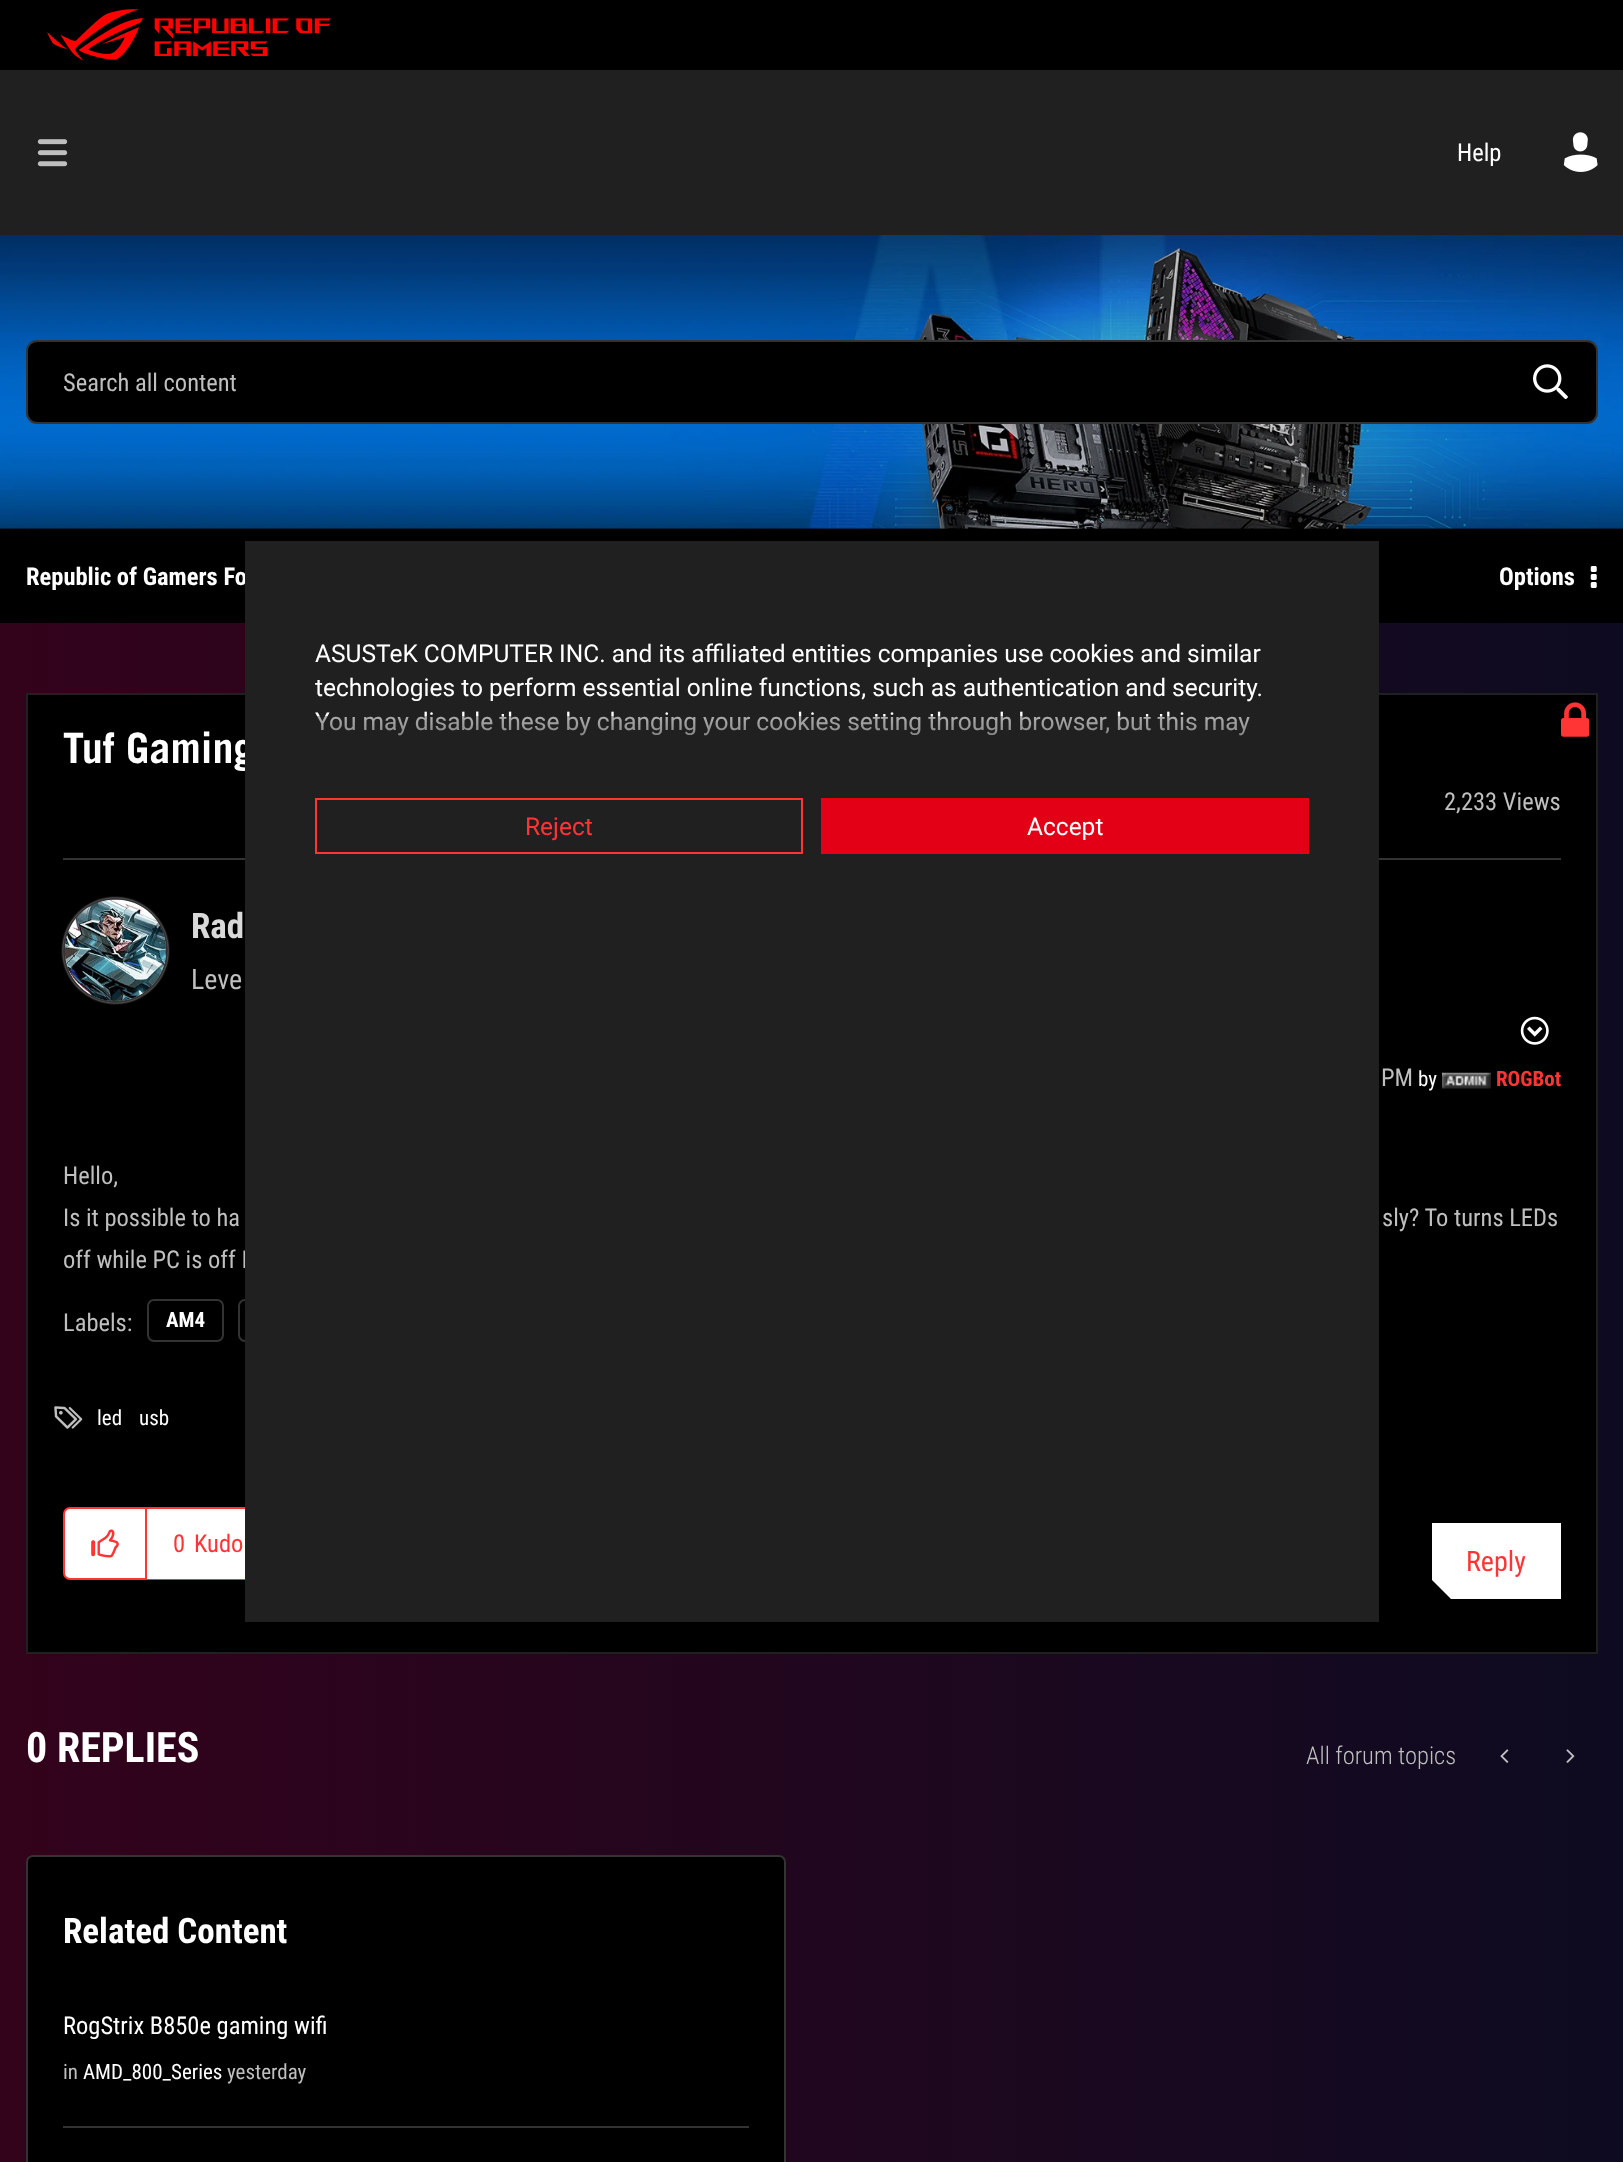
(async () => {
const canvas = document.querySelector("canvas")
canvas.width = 1623
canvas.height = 2162
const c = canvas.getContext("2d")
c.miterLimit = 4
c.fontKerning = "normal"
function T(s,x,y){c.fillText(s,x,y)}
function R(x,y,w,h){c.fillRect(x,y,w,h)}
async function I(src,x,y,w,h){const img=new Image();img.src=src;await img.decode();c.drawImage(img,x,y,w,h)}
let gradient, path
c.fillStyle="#fff"
R(0,0,1623,2162)
gradient = c.createLinearGradient(0,1684,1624,1684)
gradient.addColorStop(0,"#33021b")
gradient.addColorStop(1,"#0d0b21")
c.fillStyle = gradient
R(0,623,1623,1539)
c.fillStyle="#000"
R(0,0,1623,623)
await I("1.png",47,9,284,52)
c.fillStyle="#202020"
R(0,70,1623,165)
await I("2.png",37,139,31,28)
c.font="24.5px Roboto Condensed"
c.fillStyle="#fff"
T("Help",1457,161)
await I("3.png",1563,132,35,40)
await I("4.png",0,235,1623,294)
c.fillStyle="#000"
c.beginPath()
c.roundRect(27,341,1570,82,10)
c.fill()
c.strokeStyle="#333"
c.lineWidth=2
c.stroke()
c.fillStyle="#bfbfbf"
T("Search all content",63,391)
await I("5.png",1533,364,35,35)
c.font="bold 24.5px Roboto Condensed"
c.fillStyle="#fff"
T("Republic of Gamers Fo",26,585)
T("Options",1499,585)
await I("6.png",1590,566,7,22)
c.fillStyle="#000"
c.beginPath()
c.rect(27,694,1570,959)
c.fill()
c.strokeStyle="#202020"
c.stroke()
await I("7.png",1561,702,29,35)
c.fillStyle="#333"
R(63,858,1498,2)
c.font="bold 42px Trade Gothic"
c.fillStyle="#fff"
T("Tuf Gaming",63,763)
c.font="24.5px Roboto Condensed"
c.fillStyle="#bfbfbf"
T("2,233 Views",1444,810)
c.fillStyle="#c4c4c4"
c.filter="blur(1px)"
c.beginPath()
c.roundRect(63,898,105,105,52.5)
c.fill()
c.filter="none"
c.beginPath()
c.arc(115.5,950.5,51.5,0,7)
c.strokeStyle="#333"
c.stroke()
await I("8.png",65,899,101,102)
c.font="bold 35px Roboto Condensed"
c.fillStyle="#d9d9d9"
T("Rad",191,938)
c.font="28px Roboto Condensed"
c.fillStyle="#bfbfbf"
T("Leve",191,989)
await I("9.png",1520,1016,29,29)
c.font="24.5px Roboto Condensed"
T("PM",1381,1086)
c.font="21px Roboto Condensed"
c.fillStyle="#fff"
T("by",1418,1086)
await I("10.png",1442,1072,49,17)
c.font="bold 21px Roboto Condensed"
c.fillStyle="#ff3535"
T("ROGBot",1496,1086)
c.font="24.5px Roboto Condensed"
c.fillStyle="#bfbfbf"
T("Hello,",63,1184)
T("Is it possible to ha",63,1226)
T("sly? To turns LEDs",1382,1226)
T("off while PC is off I",63,1268)
T("Labels:",63,1331)
c.beginPath()
c.roundRect(148,1300,75,41,6)
c.stroke()
c.font="bold 21px Roboto Condensed"
c.fillStyle="#fff"
T("AM4",166,1327)
c.beginPath()
c.roundRect(239,1300,79,41,6)
c.stroke()
await I("11.png",54,1406,29,23)
c.font="21px Roboto Condensed"
T("led",97,1425)
T("usb",139,1425)
c.beginPath()
c.roundRect(64,1508,219,71,6)
c.fill()
c.strokeStyle="#ff3535"
c.stroke()
c.fillStyle="#ff3535"
R(145,1509,2,70)
await I("12.png",91,1529,28,29)
c.fillStyle="#fff"
R(147,1578,98,1)
c.font="24.5px Roboto Condensed"
c.fillStyle="#ff3535"
T("0",173,1552)
T("Kudo",194,1552)
c.save()
c.beginPath()
c.rect(1432,1523,129,77)
c.clip()
c.fillStyle="#fff"
path = new Path2D("M1432 1523v57l19 19h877v-76z")
c.fill(path)
c.restore()
c.font="28px Roboto Condensed"
T("Reply",1466,1571)
c.font="bold 42px Roboto Condensed"
c.fillStyle="#fff"
T("0 REPLIES",26,1762)
c.font="300 24.5px Roboto Condensed"
c.fillStyle="#bfbfbf"
T("All forum topics",1306,1764)
await I("13.png",1500,1749,9,14)
await I("14.png",1566,1749,9,14)
c.fillStyle="#000"
c.beginPath()
c.roundRect(27,1856,758,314,6)
c.fill()
c.strokeStyle="#333"
c.stroke()
c.font="bold 35px Roboto Condensed"
c.fillStyle="#fff"
T("Related Content",63,1943)
c.fillStyle="#333"
R(63,2126,686,2)
c.font="24.5px Roboto Condensed"
c.fillStyle="#fff"
T("RogStrix B850e gaming wifi",63,2034)
c.font="21px Roboto Condensed"
c.fillStyle="#bfbfbf"
T("in",63,2079)
c.fillStyle="#fff"
T("AMD_800_Series",83,2079)
c.fillStyle="#bfbfbf"
T("yesterday",227,2079)
c.fillStyle="#202020"
R(245,541,1134,1081)
c.font="24.5px Roboto"
c.fillStyle="#fff"
T("ASUSTeK COMPUTER INC. and its affiliated entities companies use cookies and similar",315,662)
T("technologies to perform essential online functions, such as authentication and security.",315,696)
T("You may disable these by changing your cookies setting through browser, but this may",315,730)
gradient = c.createLinearGradient(812,716,812,784)
gradient.addColorStop(0,"#2020205c")
gradient.addColorStop(1,"#202020")
c.fillStyle = gradient
R(317,716,933,20)
c.strokeStyle="#ff3535"
c.strokeRect(316,799,486,54)
c.fillStyle="#ff3535"
T("Reject",525,835)
c.fillStyle="#e30017"
R(821,798,488,56)
c.fillStyle="#fff"
T("Accept",1027,835)
})()
